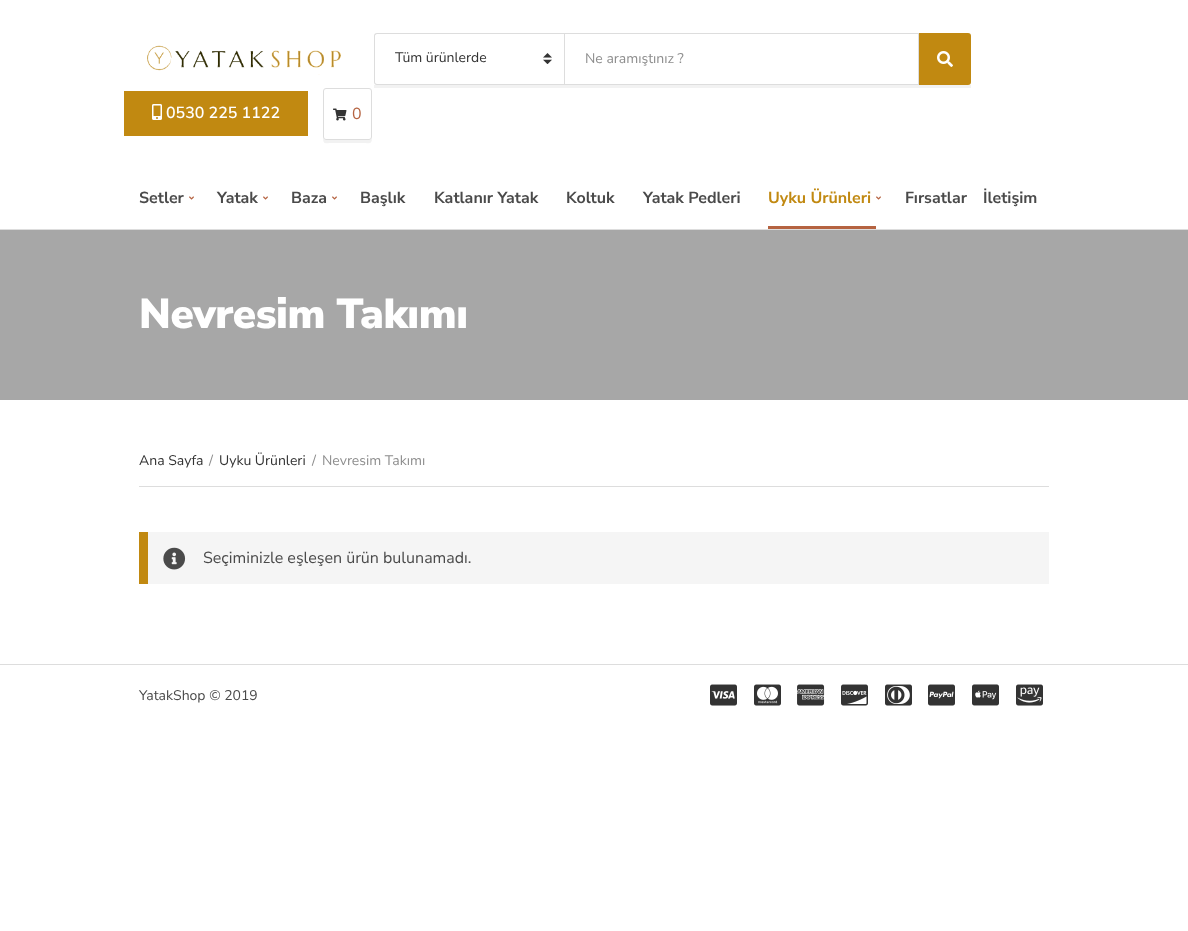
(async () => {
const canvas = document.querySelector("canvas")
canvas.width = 1188
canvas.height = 931
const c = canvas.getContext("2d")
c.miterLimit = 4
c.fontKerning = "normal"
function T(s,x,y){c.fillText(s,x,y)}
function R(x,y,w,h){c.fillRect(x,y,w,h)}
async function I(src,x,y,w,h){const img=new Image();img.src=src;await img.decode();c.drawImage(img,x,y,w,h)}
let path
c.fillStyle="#fff"
R(0,0,1188,931)
await I("1.png",147,45,194,30)
c.fillStyle="#f2f2f2"
R(374,85,597,3)
await I("2.png",543,53,9,11)
c.fillStyle="#ddd"
path = new Path2D("M377 33h187v52h-187c-2 0-3-1-3-3v-46c0-2 1-3 3-3zm0 1h187v50h-187c-1 0-2-1-2-2v-46c0-1 1-2 2-2z")
c.fill(path,"evenodd")
c.font="14px Nunito Sans"
c.fillStyle="#333"
T("Tüm ürünlerde",395,62)
c.strokeStyle="#ddd"
c.strokeRect(564.5,33.5,354,51)
c.fillStyle="#8e8e8e"
T("Ne aramıştınız ?",585,63)
c.fillStyle="#c18911"
c.beginPath()
c.roundRect(919,33,52,52,[0,3,3,0])
c.fill()
await I("3.png",937,51,16,16)
R(124,91,184,45)
await I("4.png",152,104,10,16)
c.font="600 16px Nunito Sans"
c.fillStyle="#fff"
T("0530 225 1122",166,118)
c.fillStyle="#f2f2f2"
path = new Path2D("M323 137c0 8 2 6 10 6h29c8 0 10 2 10-6c0 2-1 3-3 3h-43c-2 0-3-1-3-3z")
c.fill(path)
c.beginPath()
c.roundRect(323.5,88.5,48,51,2.5)
c.stroke()
await I("5.png",333,108,14,13)
c.font="16px Nunito Sans"
c.fillStyle="#b56341"
T("0",352,119)
c.fillStyle="#ddd"
R(0,229,1188,1)
c.font="bold 16px Nunito Sans"
c.fillStyle="#4a4a4a"
T("Setler",139,203)
await I("6.png",189,196,5,4)
T("Yatak",217,203)
await I("6.png",263,196,5,4)
T("Baza",291,203)
await I("6.png",332,196,5,4)
T("Başlık",360,203)
T("Katlanır Yatak",434,203)
T("Koltuk",566,203)
T("Yatak Pedleri",643,203)
c.fillStyle="#b56341"
R(768,226,108,3)
c.fillStyle="#c18911"
T("Uyku Ürünleri",768,203)
await I("6.png",876,196,5,4)
c.fillStyle="#4a4a4a"
T("Fırsatlar",905,203)
T("İletişim",983,203)
c.fillStyle="#a7a7a7"
R(0,230,1188,170)
c.letterSpacing="-0.4px"
c.font="900 42px Nunito Sans"
c.fillStyle="#fff"
T("Nevresim Takımı",139,328)
c.fillStyle="#ddd"
R(139,486,910,1)
c.letterSpacing="0px"
c.font="14px Nunito Sans"
c.fillStyle="#333"
T("Ana Sayfa",139,465)
c.fillStyle="#8e8e8e"
T("/",209,465)
c.fillStyle="#333"
T("Uyku Ürünleri",219,465)
c.fillStyle="#8e8e8e"
T("/",312,465)
T("Nevresim Takımı",322,465)
c.fillStyle="#f5f5f5"
R(148,532,901,52)
c.fillStyle="#c18911"
R(139,532,9,52)
await I("7.png",163,547,23,23)
c.font="16px Nunito Sans"
c.fillStyle="#4a4a4a"
T("Seçiminizle eşleşen ürün bulunamadı.",203,563)
c.fillStyle="#ddd"
R(0,664,1188,1)
c.font="14px Nunito Sans"
c.fillStyle="#4a4a4a"
T("YatakShop © 2019",139,700)
await I("8.png",710,684,27,22)
await I("9.png",754,684,27,22)
await I("10.png",797,684,28,22)
await I("11.png",841,684,27,22)
await I("12.png",885,684,27,22)
await I("13.png",928,684,27,22)
await I("14.png",972,684,27,22)
await I("15.png",1016,684,27,22)
})()
